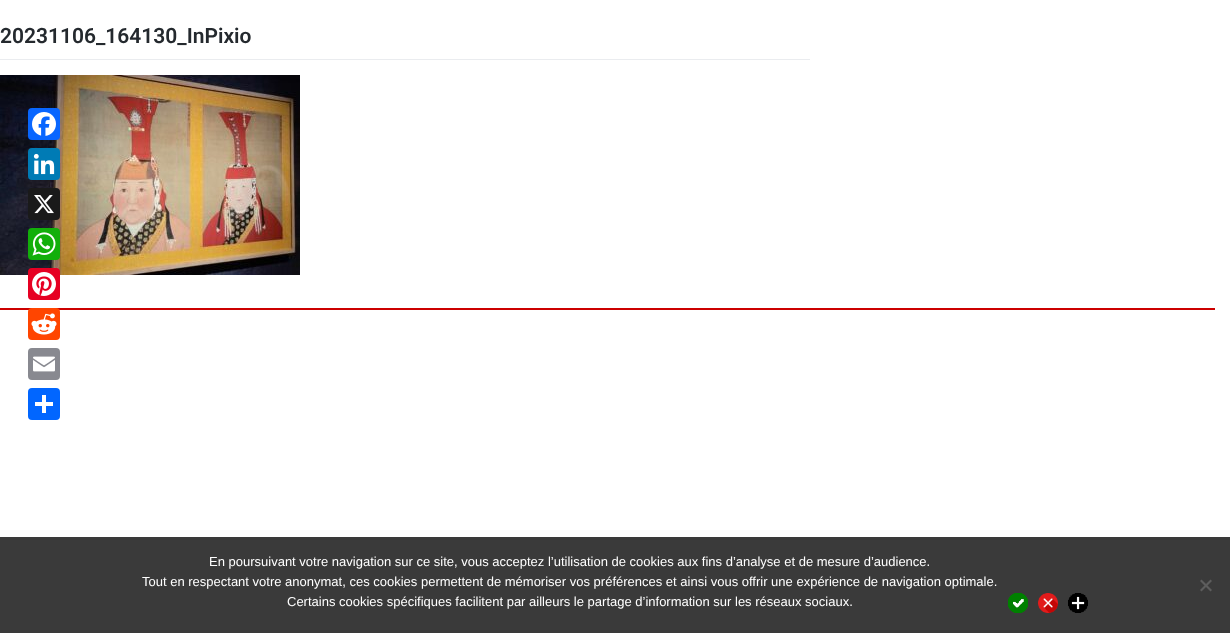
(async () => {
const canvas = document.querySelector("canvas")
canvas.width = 1230
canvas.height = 633
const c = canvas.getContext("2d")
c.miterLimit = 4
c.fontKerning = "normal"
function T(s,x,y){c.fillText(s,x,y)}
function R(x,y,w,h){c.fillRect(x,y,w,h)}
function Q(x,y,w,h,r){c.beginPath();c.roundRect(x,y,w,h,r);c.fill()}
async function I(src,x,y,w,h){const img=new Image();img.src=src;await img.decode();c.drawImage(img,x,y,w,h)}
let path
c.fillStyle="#fff"
R(0,0,1230,633)
c.fillStyle="#eaecef"
R(0,59,810,1)
c.font="600 21px Roboto"
c.fillStyle="#24292e"
T("20231106_164130_InPixio",0,43)
await I("1.png",0,75,300,200)
c.fillStyle="#c00"
R(0,308,1215,2)
c.fillStyle="#0866ff"
Q(28,108,32,32,4)
await I("2.png",32,112,24,24)
c.fillStyle="#007bb5"
Q(28,148,32,32,4)
await I("3.png",33,153,22,22)
c.fillStyle="#1a1a1a"
Q(28,188,32,32,4)
await I("4.png",34,195,20,19)
c.fillStyle="#12af0a"
Q(28,228,32,32,4)
await I("5.png",32,232,24,24)
c.fillStyle="#e60023"
Q(28,268,32,32,4)
await I("6.png",32,272,24,24)
c.fillStyle="#ff4500"
Q(28,308,32,32,4)
await I("7.png",31,313,26,22)
c.fillStyle="#888990"
Q(28,348,32,32,4)
await I("8.png",33,356,22,16)
c.fillStyle="#0166ff"
Q(28,388,32,32,4)
c.fillStyle="#fff"
R(42,395,4,18)
R(35,402,18,4)
c.fillStyle="#3a3a3a"
R(0,537,1230,96)
c.font="13px Liberation Sans"
c.fillStyle="#fff"
T("En poursuivant votre navigation sur ce site, vous acceptez l’utilisation de cookies aux fins d’analyse et de mesure d’audience.",209,566)
T("Tout en respectant votre anonymat, ces cookies permettent de mémoriser vos préférences et ainsi vous offrir une expérience de navigation optimale.",142,586)
T("Certains cookies spécifiques facilitent par ailleurs le partage d’information sur les réseaux sociaux.",287,606)
c.fillStyle="#5d5d5d"
path = new Path2D("M1210.5 579.5l1.5 1.5l-10.5 10.5l-1.5-1.5z")
c.fill(path)
path = new Path2D("M1200 581l1.5-1.5l10.5 10.5l-1.5 1.5z")
c.fill(path)
await I("9.png",1008,593,20,20)
await I("10.png",1038,593,20,20)
await I("11.png",1068,593,20,20)
})()
